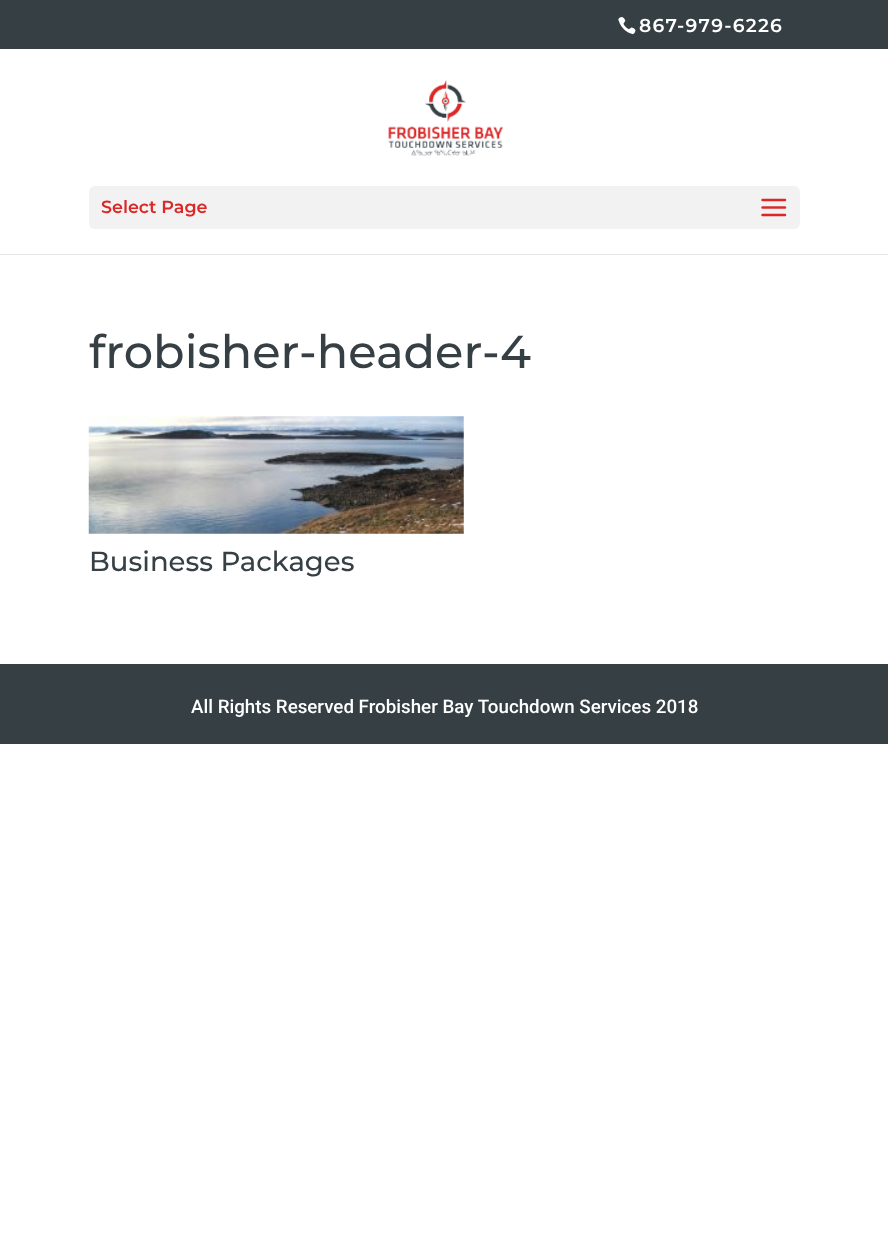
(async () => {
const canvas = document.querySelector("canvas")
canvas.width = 888
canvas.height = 1253
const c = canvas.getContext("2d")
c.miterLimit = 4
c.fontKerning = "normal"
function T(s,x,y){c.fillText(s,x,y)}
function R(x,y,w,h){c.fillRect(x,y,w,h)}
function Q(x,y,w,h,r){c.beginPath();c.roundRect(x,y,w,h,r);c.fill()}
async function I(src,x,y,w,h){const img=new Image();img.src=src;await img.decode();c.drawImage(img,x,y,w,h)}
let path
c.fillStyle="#fff"
R(0,0,888,1253)
c.fillStyle="#353f44"
R(0,0,888,49)
await I("1.png",618,17,18,18)
c.letterSpacing="1.25px"
c.font="600 18.75px Montserrat"
c.fillStyle="#fff"
T("867-979-6226",639,32)
c.fillStyle="#e6e6e6"
path = new Path2D("M0 254v1h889v-205v204z")
c.fill(path)
await I("2.png",388,80,116,76)
c.fillStyle="#f2f2f2"
Q(89,186,711,43,6)
c.letterSpacing="0px"
c.font="600 17.5px Montserrat"
c.fillStyle="#da2827"
T("Select Page",101,213)
await I("3.png",761,198,26,19)
c.font="500 46.25px Montserrat"
c.fillStyle="#353f44"
T("frobisher-header-4",89,368)
await I("4.png",88,416,376,118)
c.font="500 27.5px Montserrat"
T("Business Packages",89,571)
R(0,664,888,80)
c.font="500 18.75px Roboto"
c.fillStyle="#fff"
T("All Rights Reserved Frobisher Bay Touchdown Services 2018",191,713)
})()
